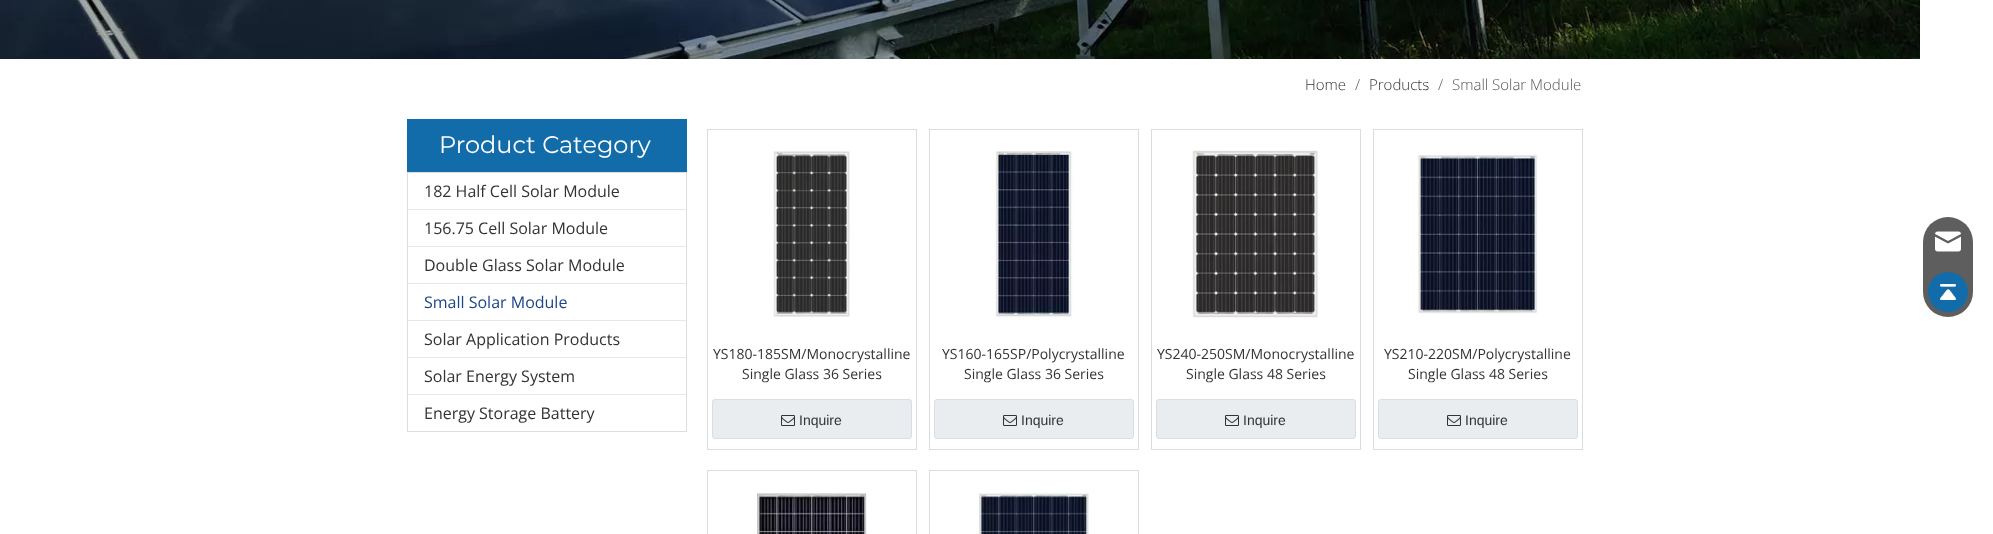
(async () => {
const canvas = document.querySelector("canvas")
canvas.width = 1993
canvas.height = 534
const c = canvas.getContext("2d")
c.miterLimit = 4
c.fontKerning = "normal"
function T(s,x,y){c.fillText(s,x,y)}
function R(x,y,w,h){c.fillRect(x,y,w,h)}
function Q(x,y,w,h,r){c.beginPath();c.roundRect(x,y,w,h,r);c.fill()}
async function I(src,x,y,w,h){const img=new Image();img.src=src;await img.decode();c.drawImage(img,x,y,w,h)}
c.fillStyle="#fff"
R(0,0,1993,534)
await I("1.png",0,0,1920,59)
c.font="300 15px Open Sans"
c.fillStyle="#333"
T("Home",1305,90)
c.fillStyle="#545454"
T("/",1355,90)
c.fillStyle="#333"
T("Products",1369,90)
c.fillStyle="#545454"
T("/",1438,90)
T("Small Solar Module",1452,90)
c.fillStyle="#136caa"
R(407,119,280,53)
c.font="100 24px Montserrat"
c.fillStyle="#fff"
T("Product Category",439,153)
c.strokeStyle="#ddd"
c.strokeRect(407.5,172.5,279,259)
c.font="16px Open Sans"
c.fillStyle="#333"
T("182 Half Cell Solar Module",424,197)
c.fillStyle="#e7e7e7"
R(408,209,278,1)
c.fillStyle="#333"
T("156.75 Cell Solar Module",424,234)
c.fillStyle="#e7e7e7"
R(408,246,278,1)
c.fillStyle="#333"
T("Double Glass Solar Module",424,271)
c.fillStyle="#e7e7e7"
R(408,283,278,1)
c.fillStyle="#1c4587"
T("Small Solar Module",424,308)
c.fillStyle="#e7e7e7"
R(408,320,278,1)
c.fillStyle="#333"
T("Solar Application Products",424,345)
c.fillStyle="#e7e7e7"
R(408,357,278,1)
c.fillStyle="#333"
T("Solar Energy System",424,382)
c.fillStyle="#e7e7e7"
R(408,394,278,1)
c.fillStyle="#333"
T("Energy Storage Battery",424,419)
c.strokeStyle="#dcdcdc"
c.strokeRect(707.5,129.5,209,320)
await I("2.png",773,151,77,166)
c.font="14px Open Sans"
T("YS180-185SM/Monocrystalline",713,359)
T("Single Glass 36 Series",742,379)
c.fillStyle="#eaedef"
c.beginPath()
c.roundRect(712.5,399.5,199,39,2.5)
c.fill()
c.strokeStyle="#d8dde6"
c.stroke()
await I("3.png",781,415,14,11)
c.font="14px Liberation Sans"
c.fillStyle="#333"
T("Inquire",799,425)
c.strokeStyle="#dcdcdc"
c.strokeRect(929.5,129.5,209,320)
await I("4.png",994,151,80,167)
c.font="14px Open Sans"
T("YS160-165SP/Polycrystalline",942,359)
T("Single Glass 36 Series",964,379)
c.fillStyle="#eaedef"
c.beginPath()
c.roundRect(934.5,399.5,199,39,2.5)
c.fill()
c.strokeStyle="#d8dde6"
c.stroke()
await I("3.png",1003,415,14,11)
c.font="14px Liberation Sans"
c.fillStyle="#333"
T("Inquire",1021,425)
c.strokeStyle="#dcdcdc"
c.strokeRect(1151.5,129.5,209,320)
await I("5.png",1192,150,126,168)
c.font="14px Open Sans"
T("YS240-250SM/Monocrystalline",1157,359)
T("Single Glass 48 Series",1186,379)
c.fillStyle="#eaedef"
c.beginPath()
c.roundRect(1156.5,399.5,199,39,2.5)
c.fill()
c.strokeStyle="#d8dde6"
c.stroke()
await I("3.png",1225,415,14,11)
c.font="14px Liberation Sans"
c.fillStyle="#333"
T("Inquire",1243,425)
c.strokeStyle="#dcdcdc"
c.strokeRect(1373.5,129.5,209,320)
await I("6.png",1417,154,121,160)
c.font="14px Open Sans"
T("YS210-220SM/Polycrystalline",1384,359)
T("Single Glass 48 Series",1408,379)
c.fillStyle="#eaedef"
c.beginPath()
c.roundRect(1378.5,399.5,199,39,2.5)
c.fill()
c.strokeStyle="#d8dde6"
c.stroke()
await I("3.png",1447,415,14,11)
c.font="14px Liberation Sans"
c.fillStyle="#333"
T("Inquire",1465,425)
c.strokeStyle="#dcdcdc"
c.strokeRect(707.5,470.5,209,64)
await I("7.png",757,493,110,41)
c.strokeRect(929.5,470.5,209,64)
await I("8.png",977,492,112,42)
c.fillStyle="#5e5e5e"
Q(1923,217,50,100,25)
await I("9.png",1935,231,26,21)
c.fillStyle="#136caa"
c.beginPath()
c.arc(1948,292,20,0,7)
c.fill()
await I("10.png",1940,284,16,16)
})()
